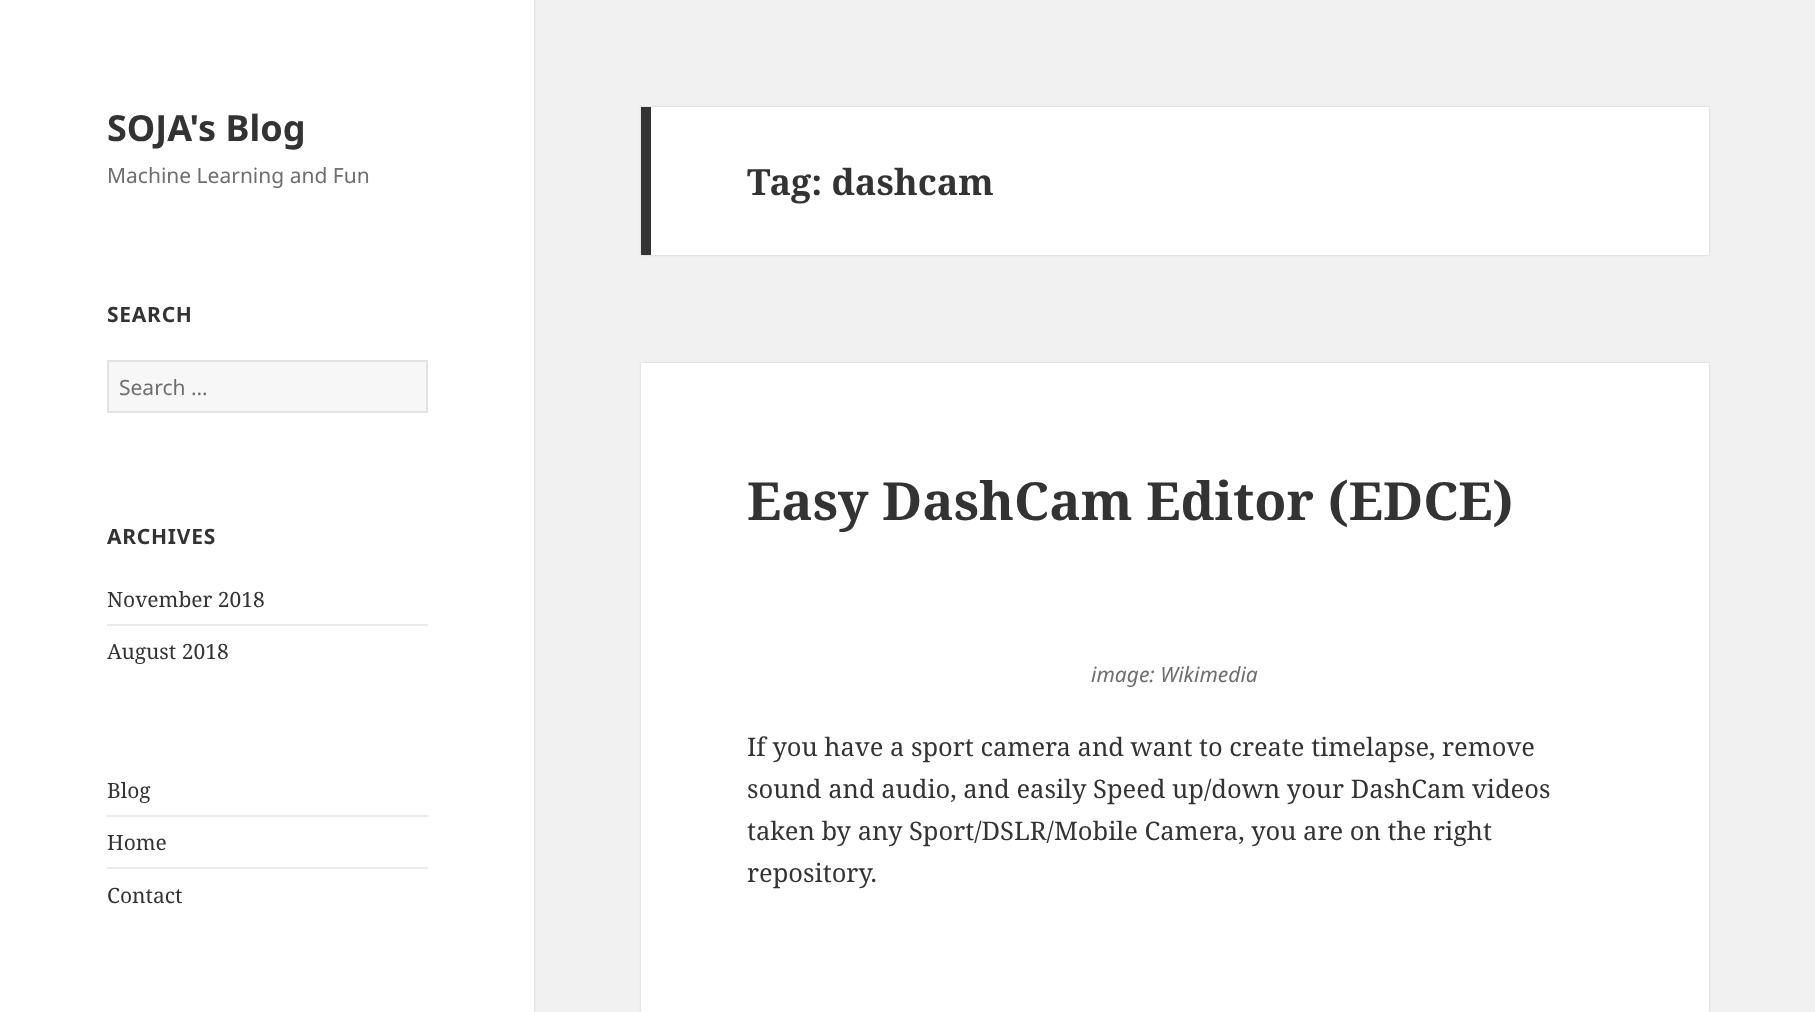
(async () => {
const canvas = document.querySelector("canvas")
canvas.width = 1815
canvas.height = 1012
const c = canvas.getContext("2d")
c.miterLimit = 4
c.fontKerning = "normal"
function T(s,x,y){c.fillText(s,x,y)}
function R(x,y,w,h){c.fillRect(x,y,w,h)}
c.fillStyle="#f1f1f1"
R(0,0,1815,1012)
c.fillStyle="#00000026"
c.filter="blur(1px)"
c.beginPath()
c.rect(0,0,534,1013)
c.fill()
c.filter="none"
c.fillStyle="#fff"
R(0,0,534,1012)
c.font="bold 36px Noto Sans"
c.fillStyle="#333"
T("SOJA's Blog",107,141)
c.font="21px Noto Sans"
c.fillStyle="#6e6e6e"
T("Machine Learning and Fun",107,183)
c.letterSpacing="0.75px"
c.font="bold 21px Noto Sans"
c.fillStyle="#333"
T("SEARCH",107,322)
c.fillStyle="#f7f7f7"
c.beginPath()
c.rect(108,361,319,51)
c.fill()
c.strokeStyle="#e3e3e3"
c.lineWidth=2
c.stroke()
c.letterSpacing="0px"
c.font="21px Noto Sans"
c.fillStyle="#6e6e6e"
T("Search …",119,395)
c.letterSpacing="0.75px"
c.font="bold 21px Noto Sans"
c.fillStyle="#333"
T("ARCHIVES",107,544)
c.letterSpacing="0px"
c.font="21px Noto Serif"
T("November 2018",107,607)
c.fillStyle="#ebebeb"
R(107,624,321,2)
c.fillStyle="#333"
T("August 2018",107,659)
T("Blog",107,798)
c.fillStyle="#ebebeb"
R(107,815,321,2)
c.fillStyle="#333"
T("Home",107,850)
c.fillStyle="#ebebeb"
R(107,867,321,2)
c.fillStyle="#333"
T("Contact",107,903)
c.fillStyle="#00000026"
c.filter="blur(1px)"
c.beginPath()
c.rect(641,107,1068,148)
c.fill()
c.filter="none"
c.fillStyle="#fff"
R(651,107,1058,148)
c.fillStyle="#333"
R(641,107,10,148)
c.font="bold 36px Noto Serif"
T("Tag: dashcam",747,195)
c.fillStyle="#00000026"
c.filter="blur(1px)"
c.beginPath()
c.rect(641,363,1068,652)
c.fill()
c.filter="none"
c.fillStyle="#fff"
R(641,363,1068,649)
c.font="bold 52.5px Noto Serif"
c.fillStyle="#333"
T("Easy DashCam Editor (EDCE)",747,520)
c.font="italic 21px Noto Sans"
c.fillStyle="#6e6e6e"
T("image: Wikimedia",1091,682)
c.font="25.5px Noto Serif"
c.fillStyle="#333"
T("If you have a sport camera and want to create timelapse, remove",747,756)
T("sound and audio, and easily Speed up/down your DashCam videos",747,798)
T("taken by any Sport/DSLR/Mobile Camera, you are on the right",747,840)
T("repository.",747,882)
})()
